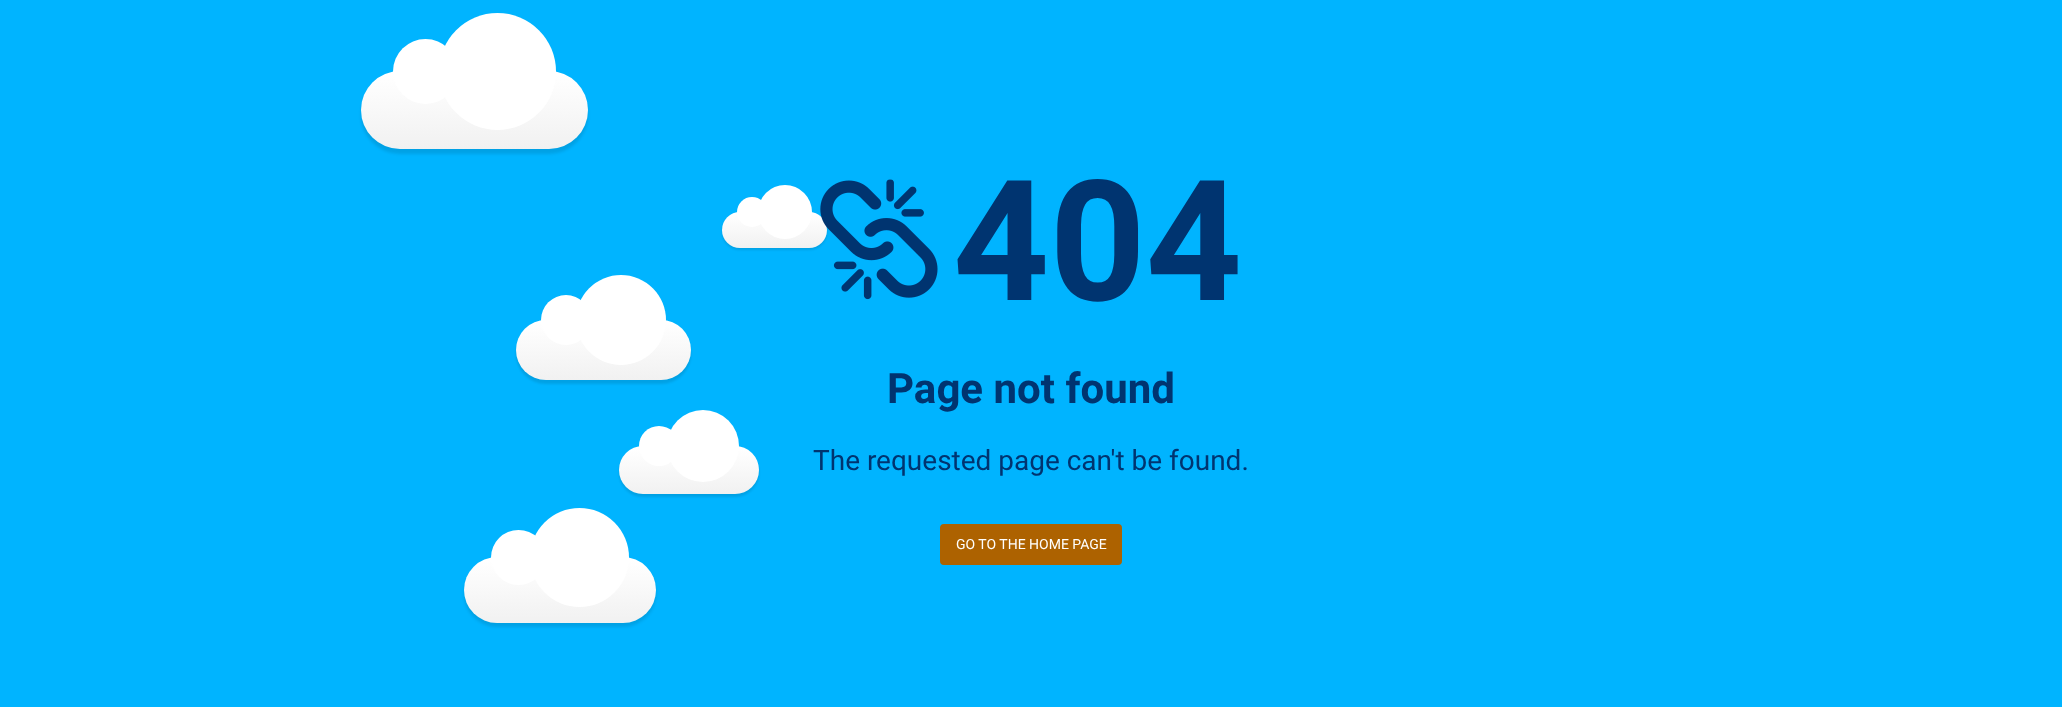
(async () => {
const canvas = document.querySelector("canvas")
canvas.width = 2062
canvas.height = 707
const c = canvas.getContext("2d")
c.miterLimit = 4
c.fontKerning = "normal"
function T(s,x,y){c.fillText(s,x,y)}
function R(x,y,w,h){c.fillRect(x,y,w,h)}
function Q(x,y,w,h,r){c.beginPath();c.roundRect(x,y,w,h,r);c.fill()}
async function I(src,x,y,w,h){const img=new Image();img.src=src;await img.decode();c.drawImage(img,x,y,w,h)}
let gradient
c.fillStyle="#00b4ff"
R(0,0,2062,707)
c.fillStyle="#0000001a"
c.filter="blur(1.5px)"
c.beginPath()
c.roundRect(361,76,227,78,39)
c.fill()
c.filter="none"
gradient = c.createLinearGradient(475,71,475,149)
gradient.addColorStop(.05,"#fff")
gradient.addColorStop(1,"#f1f1f1")
c.fillStyle = gradient
Q(361,71,227,78,39)
c.fillStyle="#fff"
c.beginPath()
c.arc(497.5,71.5,58.5,0,7)
c.fill()
c.beginPath()
c.arc(425.5,71.5,32.5,0,7)
c.fill()
c.fillStyle="#0000001a"
c.filter="blur(1px)"
c.beginPath()
c.roundRect(722,214,105,36,18)
c.fill()
c.filter="none"
gradient = c.createLinearGradient(774,212,774,248)
gradient.addColorStop(.05,"#fff")
gradient.addColorStop(1,"#f1f1f1")
c.fillStyle = gradient
Q(722,212,105,36,18)
c.fillStyle="#fff"
c.beginPath()
c.arc(785,212,27,0,7)
c.fill()
c.beginPath()
c.arc(752,212,15,0,7)
c.fill()
c.fillStyle="#0000001a"
c.filter="blur(1px)"
c.beginPath()
c.roundRect(516,324,175,60,30)
c.fill()
c.filter="none"
gradient = c.createLinearGradient(603,320,603,380)
gradient.addColorStop(.05,"#fff")
gradient.addColorStop(1,"#f1f1f1")
c.fillStyle = gradient
Q(516,320,175,60,30)
c.fillStyle="#fff"
c.beginPath()
c.arc(621,320,45,0,7)
c.fill()
c.beginPath()
c.arc(566,320,25,0,7)
c.fill()
c.fillStyle="#0000001a"
c.filter="blur(1px)"
c.beginPath()
c.roundRect(619,449,140,48,24)
c.fill()
c.filter="none"
gradient = c.createLinearGradient(689,446,689,494)
gradient.addColorStop(.05,"#fff")
gradient.addColorStop(1,"#f1f1f1")
c.fillStyle = gradient
Q(619,446,140,48,24)
c.fillStyle="#fff"
c.beginPath()
c.arc(703,446,36,0,7)
c.fill()
c.beginPath()
c.arc(659,446,20,0,7)
c.fill()
c.fillStyle="#0000001a"
c.filter="blur(1.5px)"
c.beginPath()
c.roundRect(464,561,192,66,33)
c.fill()
c.filter="none"
gradient = c.createLinearGradient(560,557,560,623)
gradient.addColorStop(.05,"#fff")
gradient.addColorStop(1,"#f1f1f1")
c.fillStyle = gradient
Q(464,557,192,66,33)
c.fillStyle="#fff"
c.beginPath()
c.arc(579.5,557.5,49.5,0,7)
c.fill()
c.beginPath()
c.arc(518.5,557.5,27.5,0,7)
c.fill()
await I("1.png",820,179,118,121)
c.font="bold 168px Roboto"
c.fillStyle="#003470"
T("404",953,300)
c.font="bold 42px Roboto"
T("Page not found",887,403)
c.font="28px Roboto"
T("The requested page can't be found.",813,470)
c.fillStyle="#ad6200"
c.beginPath()
c.roundRect(941,525,180,39,3)
c.fill()
c.strokeStyle="#ad6200"
c.lineWidth=2
c.stroke()
c.font="14px Roboto"
c.fillStyle="#fff"
T("GO TO THE HOME PAGE",956,549)
})()
